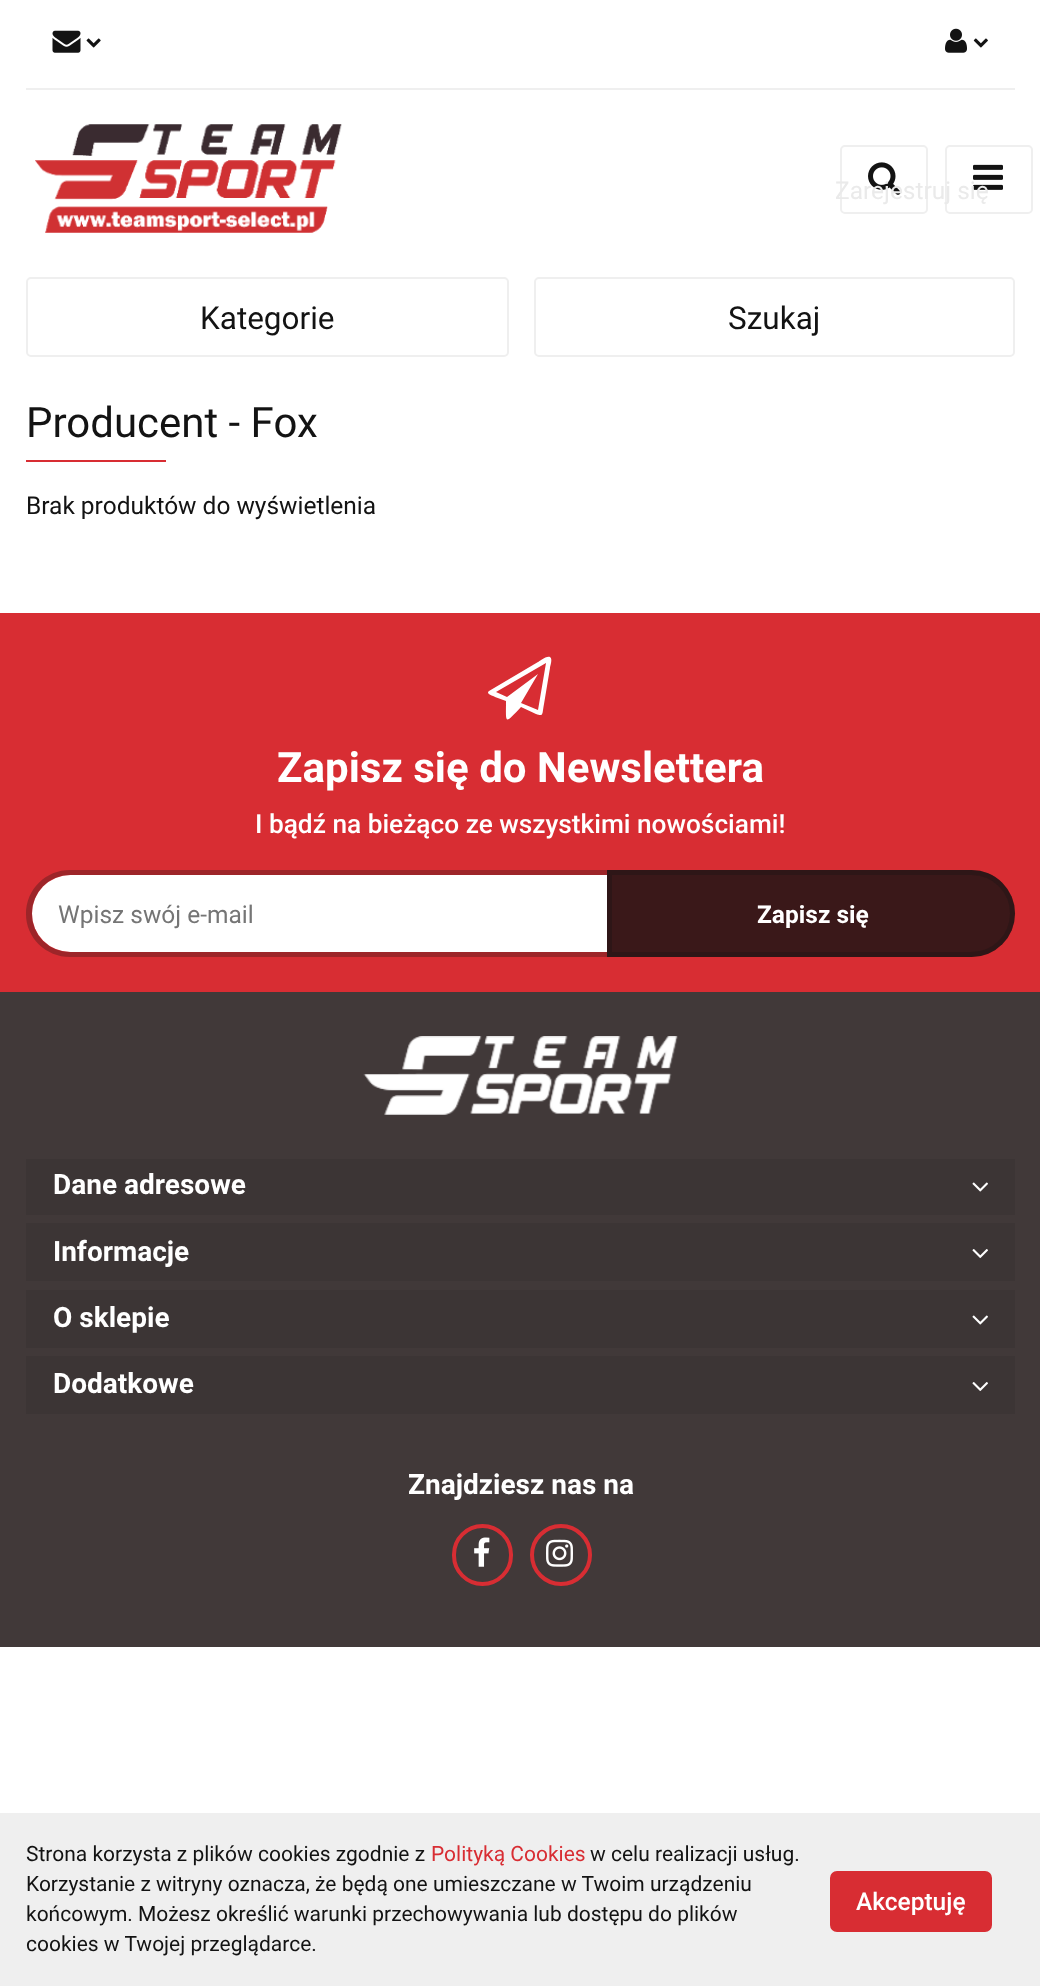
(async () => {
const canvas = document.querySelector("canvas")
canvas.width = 1040
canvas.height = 1986
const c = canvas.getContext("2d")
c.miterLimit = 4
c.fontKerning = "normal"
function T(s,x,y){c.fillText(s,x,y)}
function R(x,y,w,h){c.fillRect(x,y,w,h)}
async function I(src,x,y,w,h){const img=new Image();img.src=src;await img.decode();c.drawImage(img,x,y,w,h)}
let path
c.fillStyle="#fff"
R(0,0,1040,1986)
await I("1.png",35,124,307,109)
c.beginPath()
c.roundRect(841,146,86,67,4)
c.strokeStyle="#efefef"
c.lineWidth=2
c.stroke()
await I("2.png",868,162,33,33)
c.beginPath()
c.roundRect(946,146,86,67,4)
c.stroke()
await I("3.png",973,164,30,26)
c.fillStyle="#efefef"
R(26,88,989,2)
await I("4.png",52,30,29,23)
await I("5.png",86,38,15,10)
await I("6.png",945,28,22,25)
await I("7.png",973,38,15,10)
c.font="24.5px Roboto"
c.fillStyle="#eaeaea"
T("Zarejestruj się",835,199)
c.beginPath()
c.roundRect(27,278,481,78,4)
c.stroke()
c.font="31.5px Roboto"
c.fillStyle="#131313"
T("Kategorie",200,329)
c.beginPath()
c.roundRect(535,278,479,78,4)
c.stroke()
T("Szukaj",728,329)
c.font="42px Roboto"
T("Producent - Fox",26,437)
c.fillStyle="#d82d33"
R(26,460,140,2)
c.font="24.5px Roboto"
c.fillStyle="#131313"
T("Brak produktów do wyświetlenia",26,514)
c.fillStyle="#d82d33"
R(0,613,1040,379)
c.fillStyle="#fff"
path = new Path2D("M550 657c3 2 0 9 0 11l-6 36c-2 10 0 13-8 10l-15-7c-17 18-15 17-15-6l-11-4c-1-1-10-3-6-6l49-29c0 0 9-7 12-5zm-12 53l8-47l-50 29l11 5l31-23l-17 29z")
c.fill(path)
c.font="bold 42px Roboto"
T("Zapisz się do Newslettera",277,782)
c.font="500 26.25px Roboto"
T("I bądź na bieżąco ze wszystkimi nowościami!",255,833)
c.beginPath()
c.roundRect(32,875,575,77,[38.5,0,0,38.5])
c.fill()
c.fillStyle="#1313134d"
path = new Path2D("M70 870h537v87h-537c-24 0-44-19-44-43c0-25 20-44 44-44zm0 5h537v77h-537c-21 0-38-17-38-38c0-22 17-39 38-39z")
c.fill(path,"evenodd")
c.font="24.5px Roboto"
c.fillStyle="#757575"
T("Wpisz swój e-mail",58,923)
c.fillStyle="#3a1819"
c.beginPath()
c.roundRect(607,870,408,87,[0,43.5,43.5,0])
c.fill()
c.beginPath()
c.roundRect(609.5,872.5,403,82,[0,41,41,0])
c.strokeStyle="#1313134d"
c.lineWidth=5
c.stroke()
c.font="bold 24.5px Roboto"
c.fillStyle="#fff"
T("Zapisz się",757,923)
c.fillStyle="#413939"
R(0,992,1040,655)
await I("8.png",363,1036,315,79)
c.fillStyle="#3c3535"
R(26,1159,989,56)
c.font="bold 28px Roboto"
c.fillStyle="#fff"
T("Dane adresowe",53,1194)
await I("9.png",972,1182,16,10)
c.fillStyle="#3c3535"
R(26,1223,989,58)
c.fillStyle="#fff"
T("Informacje",53,1261)
await I("10.png",972,1249,16,9)
c.fillStyle="#3c3535"
R(26,1290,989,58)
c.fillStyle="#fff"
T("O sklepie",53,1327)
await I("9.png",972,1315,16,10)
c.fillStyle="#3c3535"
R(26,1356,989,58)
c.fillStyle="#fff"
T("Dodatkowe",53,1393)
await I("10.png",972,1382,16,9)
T("Znajdziesz nas na",408,1494)
c.beginPath()
c.roundRect(454,1526,57,58,28.5)
c.strokeStyle="#d82d33"
c.lineWidth=4
c.stroke()
await I("11.png",474,1537,16,30)
c.beginPath()
c.arc(561,1555,29,0,7)
c.stroke()
await I("12.png",546,1539,27,28)
c.fillStyle="#efefef"
R(0,1813,1040,173)
c.font="21px Roboto"
c.fillStyle="#131313"
T("Strona korzysta z plików cookies zgodnie z",26,1861)
c.fillStyle="#d82d33"
T("Polityką Cookies",431,1861)
c.fillStyle="#131313"
T("w celu realizacji usług.",590,1861)
T("Korzystanie z witryny oznacza, że będą one umieszczane w Twoim urządzeniu",26,1891)
T("końcowym. Możesz określić warunki przechowywania lub dostępu do plików",26,1921)
T("cookies w Twojej przeglądarce.",26,1951)
c.fillStyle="#d82d33"
c.beginPath()
c.roundRect(832.5,1873.5,157,56,4.5)
c.fill()
c.lineWidth=5
c.stroke()
c.font="500 24.5px Roboto"
c.fillStyle="#fff"
T("Akceptuję",856,1910)
})()
